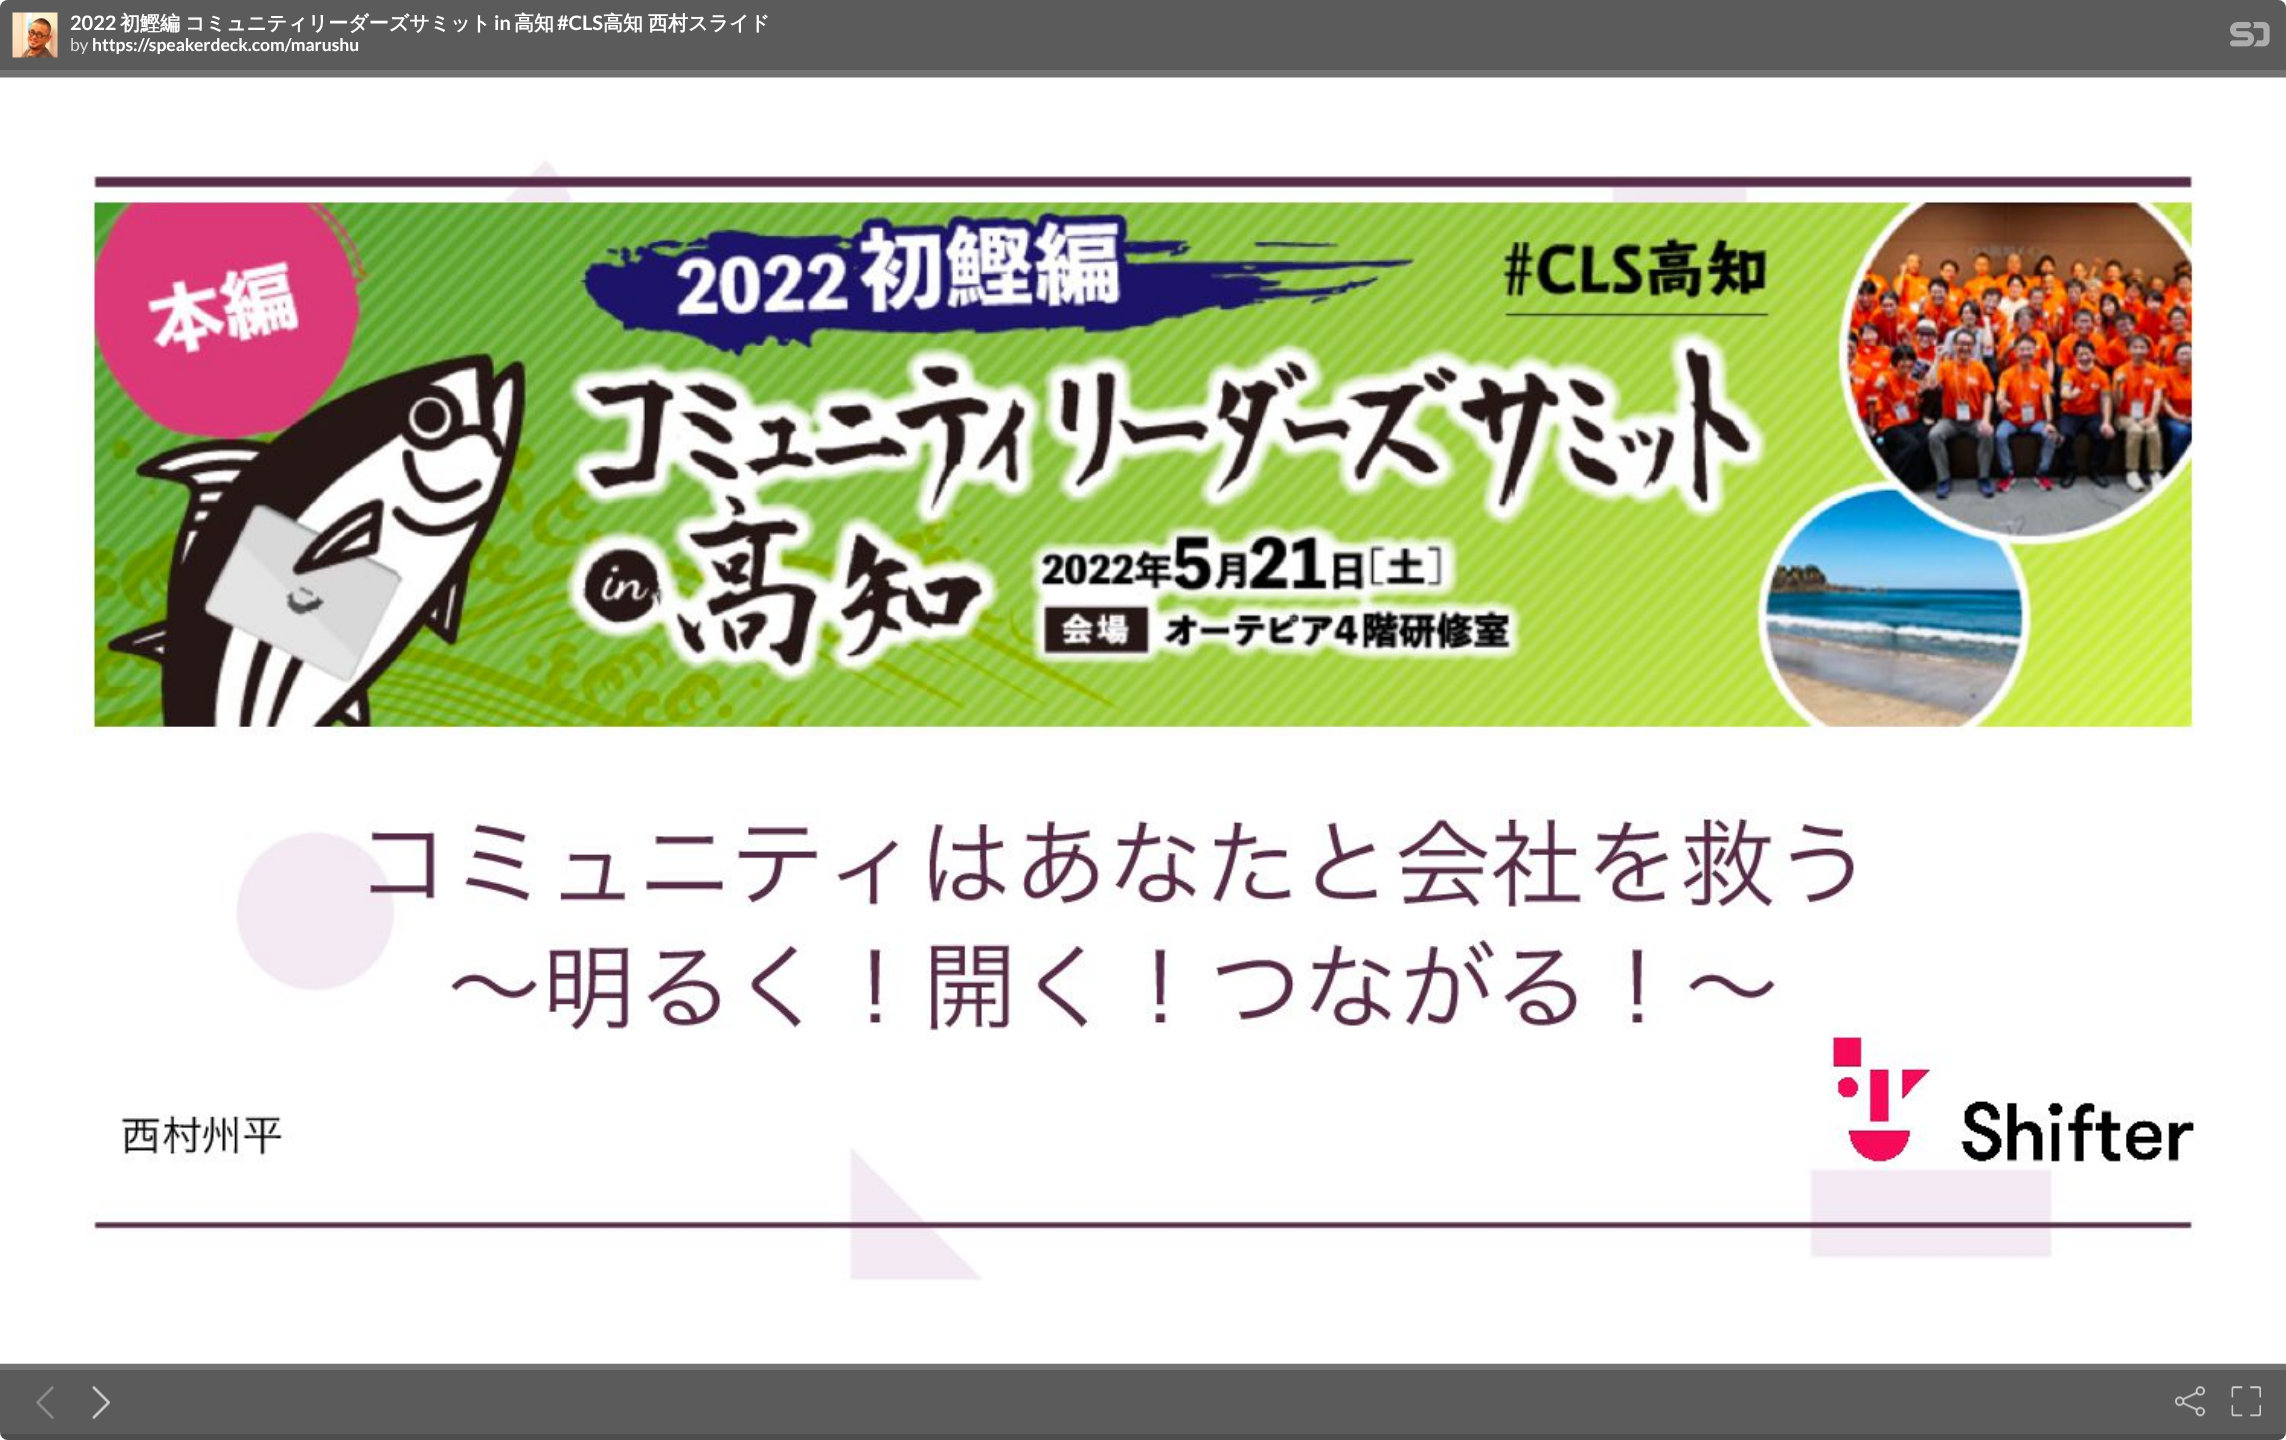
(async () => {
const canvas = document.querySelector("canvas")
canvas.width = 2286
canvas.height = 1440
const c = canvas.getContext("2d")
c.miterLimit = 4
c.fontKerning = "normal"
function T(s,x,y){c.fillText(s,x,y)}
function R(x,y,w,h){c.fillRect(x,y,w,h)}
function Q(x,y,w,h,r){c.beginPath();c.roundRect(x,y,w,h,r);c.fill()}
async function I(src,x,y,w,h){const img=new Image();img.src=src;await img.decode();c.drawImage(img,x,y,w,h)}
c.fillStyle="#fff"
R(0,0,2286,1440)
c.fillStyle="#727272"
Q(0,0,2286,1440,8)
await I("1.png",0,77,2286,1287)
c.fillStyle="#00000033"
c.beginPath()
c.roundRect(0,0,2286,70,[8,8,0,0])
c.fill()
await I("2.png",12,12,46,46)
c.font="bold 20px Lato"
c.fillStyle="#fff"
T("2022",70,30)
c.wordSpacing="-1px"
c.font="bold 20px WenQuanYi Zen Hei"
T("初鰹編 コミュニティリーダーズサミット",120,30)
c.wordSpacing="0px"
c.font="bold 20px Lato"
T("in",494,30)
c.font="bold 20px WenQuanYi Zen Hei"
T("高知",514,30)
c.font="bold 20px Lato"
T("#CLS",557,30)
c.wordSpacing="-1px"
c.font="bold 20px WenQuanYi Zen Hei"
T("高知 西村スライド",603,30)
await I("3.png",2230,22,40,25)
c.wordSpacing="0px"
c.font="17.5px Lato"
c.fillStyle="#dedede"
T("by",70,51)
c.font="bold 17.5px Lato"
c.fillStyle="#fff"
T("https://speakerdeck.com/marushu",92,51)
c.fillStyle="#00000033"
c.beginPath()
c.roundRect(0,1370,2286,70,[0,0,8,8])
c.fill()
await I("4.png",36,1385,18,35)
await I("5.png",92,1385,18,35)
await I("6.png",2175,1386,30,31)
await I("7.png",2231,1386,30,31)
c.save()
c.beginPath()
c.roundRect(0,0,2286,1440,8)
c.clip()
c.fillStyle="#00000026"
R(0,1434,2286,6)
c.restore()
})()
